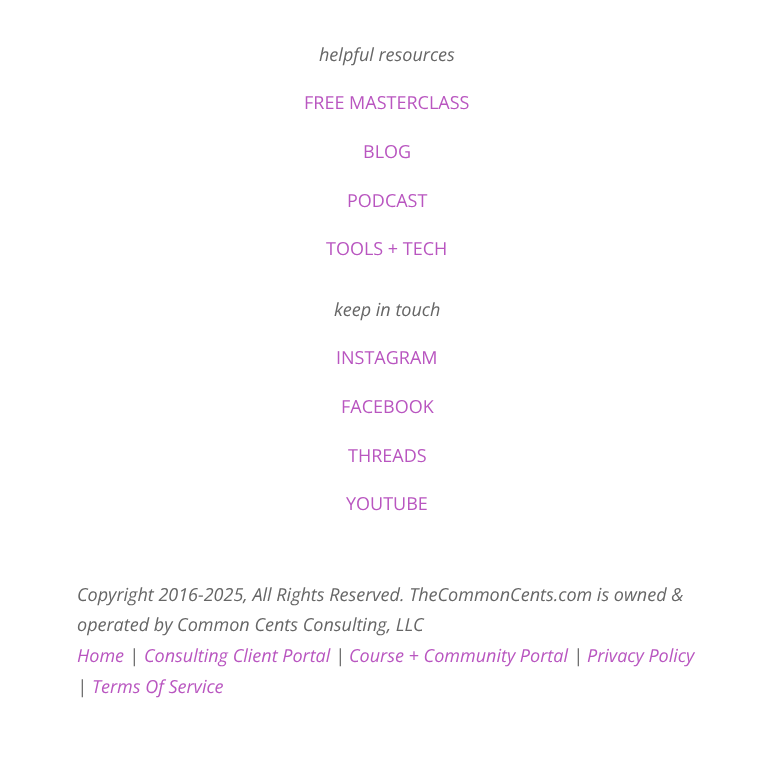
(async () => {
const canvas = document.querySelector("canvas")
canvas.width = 774
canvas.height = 781
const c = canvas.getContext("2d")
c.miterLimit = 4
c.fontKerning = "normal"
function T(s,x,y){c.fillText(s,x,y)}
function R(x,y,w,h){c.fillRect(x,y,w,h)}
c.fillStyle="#fff"
R(0,0,774,781)
c.font="italic 18px Open Sans"
c.fillStyle="#666"
T("helpful resources",319,61)
c.font="18px Open Sans"
c.fillStyle="#b956c0"
T("FREE MASTERCLASS",304,109)
T("BLOG",363,158)
T("PODCAST",347,207)
T("TOOLS + TECH",326,255)
c.font="italic 18px Open Sans"
c.fillStyle="#666"
T("keep in touch",334,316)
c.font="18px Open Sans"
c.fillStyle="#b956c0"
T("INSTAGRAM",336,364)
T("FACEBOOK",341,413)
T("THREADS",348,462)
T("YOUTUBE",346,510)
c.font="italic 18px Open Sans"
c.fillStyle="#666"
T("Copyright 2016-2025, All Rights Reserved. TheCommonCents.com is owned &",77,601)
T("operated by Common Cents Consulting, LLC",77,631)
c.fillStyle="#b956c0"
T("Home",77,662)
c.fillStyle="#666"
T("|",129,662)
c.fillStyle="#b956c0"
T("Consulting Client Portal",144,662)
c.fillStyle="#666"
T("|",335,662)
c.fillStyle="#b956c0"
T("Course + Community Portal",349,662)
c.fillStyle="#666"
T("|",573,662)
c.fillStyle="#b956c0"
T("Privacy Policy",587,662)
c.fillStyle="#666"
T("|",77,693)
c.fillStyle="#b956c0"
T("Terms Of Service",92,693)
})()
